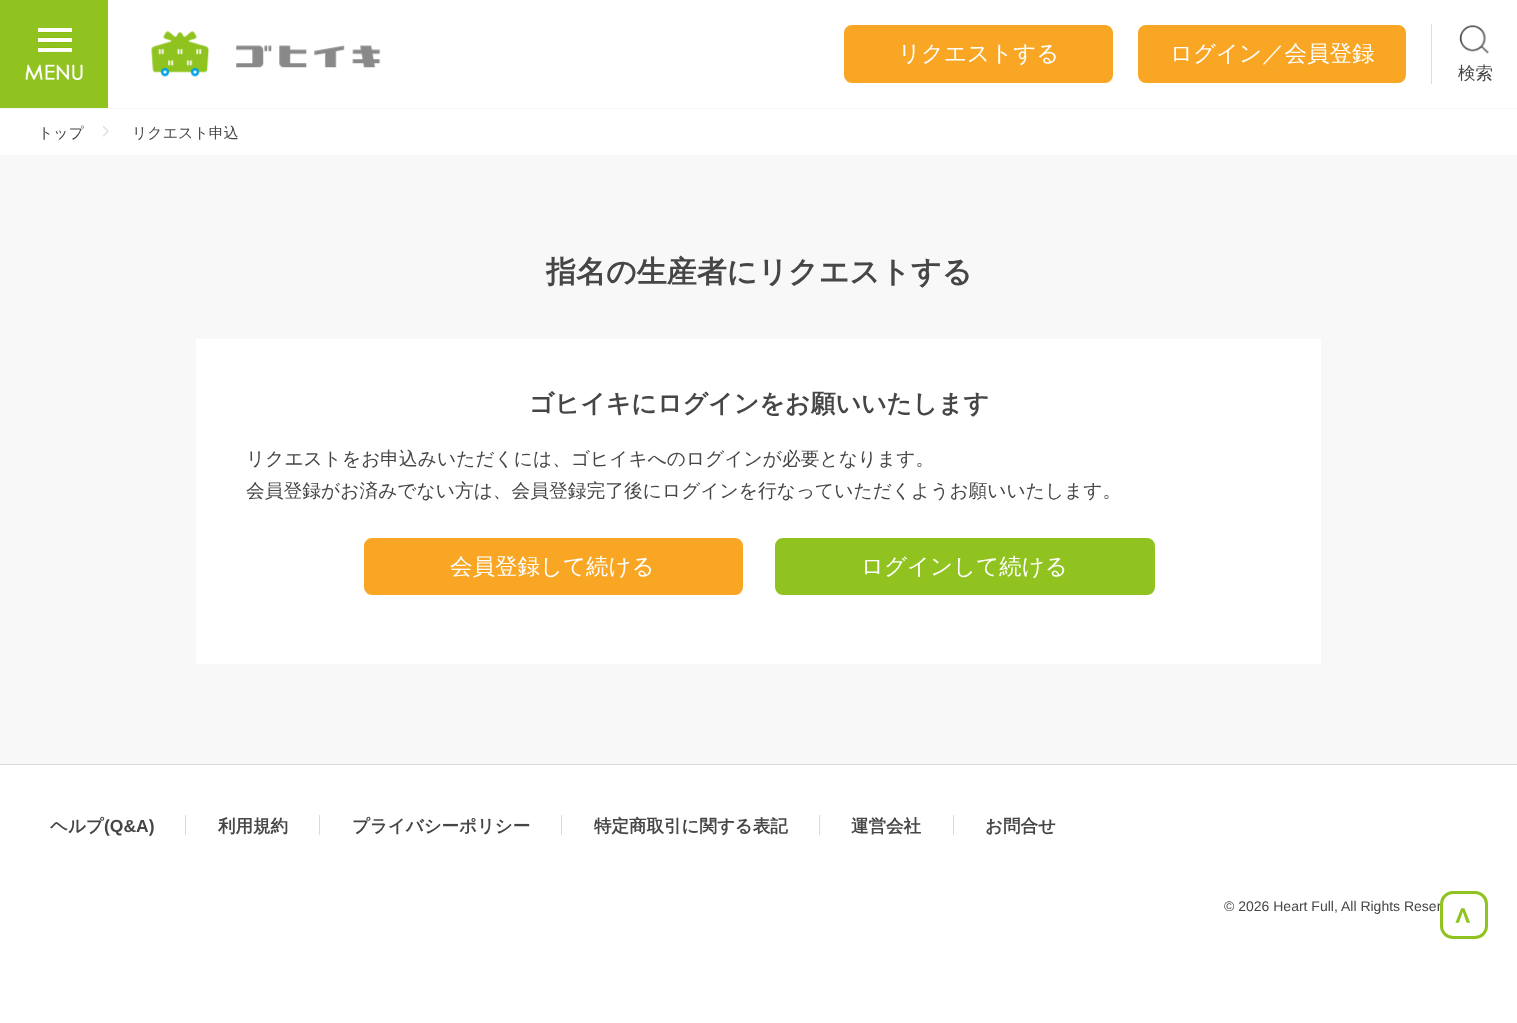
(async () => {
const canvas = document.querySelector("canvas")
canvas.width = 1517
canvas.height = 1023
const c = canvas.getContext("2d")
c.miterLimit = 4
c.fontKerning = "normal"
function T(s,x,y){c.fillText(s,x,y)}
function R(x,y,w,h){c.fillRect(x,y,w,h)}
async function I(src,x,y,w,h){const img=new Image();img.src=src;await img.decode();c.drawImage(img,x,y,w,h)}
c.fillStyle="#fff"
R(0,0,1517,1023)
c.fillStyle="#90c31f"
R(0,0,108,108)
await I("1.png",25,28,58,52)
await I("2.png",151,31,230,46)
c.fillStyle="#f8a624"
c.beginPath()
c.roundRect(845.5,26.5,266,55,6.5)
c.fill()
c.strokeStyle="#f8a624"
c.lineWidth=3
c.stroke()
c.font="500 22.5px WenQuanYi Zen Hei"
c.fillStyle="#fff"
T("リクエストする",898,61)
c.fillStyle="#f8a624"
c.beginPath()
c.roundRect(1139.5,26.5,265,55,6.5)
c.fill()
c.stroke()
c.fillStyle="#fff"
T("ログイン／会員登録",1170,61)
c.fillStyle="#ddd"
R(1431,24,1,60)
await I("3.png",1459,25,30,29)
c.font="500 17.5px WenQuanYi Zen Hei"
c.fillStyle="#464646"
T("検索",1458,79)
c.fillStyle="#f8f8f8"
R(0,108,1517,1)
c.font="500 15px WenQuanYi Zen Hei"
c.fillStyle="#464646"
T("トップ",38,138)
await I("4.png",103,126,6,11)
T("リクエスト申込",132,138)
c.fillStyle="#f8f8f8"
R(0,155,1517,609)
c.font="bold 30px WenQuanYi Zen Hei"
c.fillStyle="#464646"
T("指名の生産者にリクエストする",546,282)
c.fillStyle="#fff"
R(196,339,1125,325)
c.font="bold 25px WenQuanYi Zen Hei"
c.fillStyle="#464646"
T("ゴヒイキにログインをお願いいたします",529,412)
c.font="500 18.75px WenQuanYi Zen Hei"
T("リクエストをお申込みいただくには、ゴヒイキへのログインが必要となります。",246,465)
T("会員登録がお済みでない方は、会員登録完了後にログインを行なっていただくようお願いいたします。",246,497)
c.fillStyle="#f8a624"
c.beginPath()
c.roundRect(365.5,539.5,376,54,6.5)
c.fill()
c.stroke()
c.font="500 22.5px WenQuanYi Zen Hei"
c.fillStyle="#fff"
T("会員登録して続ける",450,574)
c.fillStyle="#90c31f"
c.beginPath()
c.roundRect(776.5,539.5,377,54,6.5)
c.fill()
c.strokeStyle="#90c31f"
c.stroke()
c.fillStyle="#fff"
T("ログインして続ける",861,574)
c.fillStyle="#dbdbdb"
R(0,764,1517,1)
c.font="bold 17.5px WenQuanYi Zen Hei"
c.fillStyle="#464646"
T("ヘルプ",50,832)
c.font="bold 17.5px Liberation Sans"
T("(Q&A)",104,832)
c.fillStyle="#dbdbdb"
R(185,815,1,20)
c.font="bold 17.5px WenQuanYi Zen Hei"
c.fillStyle="#464646"
T("利用規約",218,832)
c.fillStyle="#dbdbdb"
R(319,815,1,20)
c.fillStyle="#464646"
T("プライバシーポリシー",352,832)
c.fillStyle="#dbdbdb"
R(561,815,1,20)
c.fillStyle="#464646"
T("特定商取引に関する表記",594,832)
c.fillStyle="#dbdbdb"
R(819,815,1,20)
c.fillStyle="#464646"
T("運営会社",851,832)
c.fillStyle="#dbdbdb"
R(953,815,1,20)
c.fillStyle="#464646"
T("お問合せ",985,832)
c.font="14px Liberation Sans"
T("© 2026 Heart Full, All Rights Reser",1224,911)
c.fillStyle="#ffffffbf"
c.beginPath()
c.roundRect(1441.5,892.5,45,45,11.5)
c.fill()
c.stroke()
c.font="bold 28px DejaVu Sans Mono"
c.fillStyle="#90c31f"
c.save()
c.translate(1454,907)
c.rotate(90 * Math.PI / 180)
c.fillText("<",0,0)
c.restore()
})()
